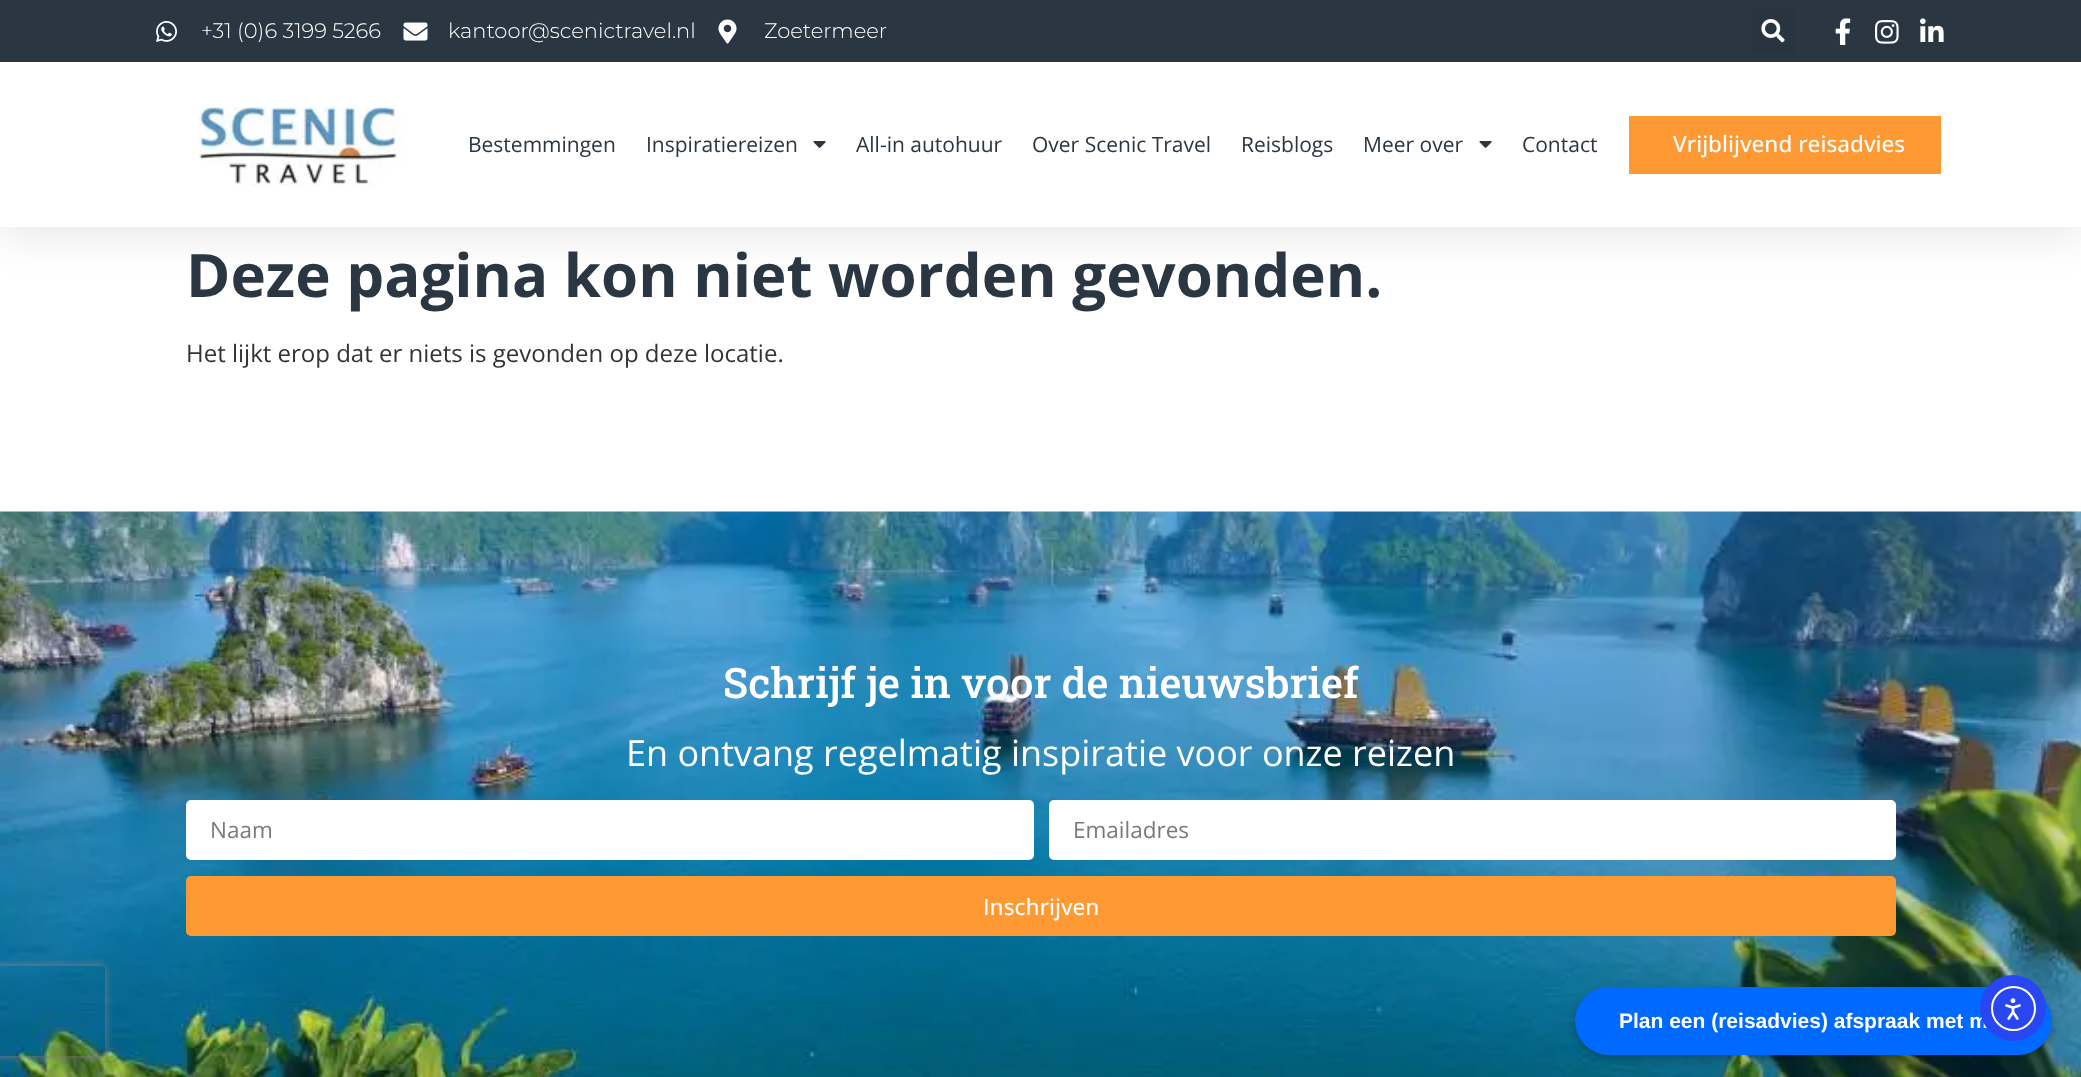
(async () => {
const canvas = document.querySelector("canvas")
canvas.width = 2081
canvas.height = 1077
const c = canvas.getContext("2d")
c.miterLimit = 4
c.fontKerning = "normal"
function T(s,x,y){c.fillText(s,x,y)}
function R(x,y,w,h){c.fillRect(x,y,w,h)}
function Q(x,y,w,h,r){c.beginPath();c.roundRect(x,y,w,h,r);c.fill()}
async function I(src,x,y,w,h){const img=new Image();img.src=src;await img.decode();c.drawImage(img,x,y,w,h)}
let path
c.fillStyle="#fff"
R(0,0,2081,1077)
c.fillStyle="#0000001a"
c.filter="blur(22.5px)"
c.beginPath()
c.rect(0,8,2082,226)
c.fill()
c.filter="none"
c.fillStyle="#2a3742"
R(0,0,2081,62)
await I("1.png",156,21,21,21)
c.font="300 21px Montserrat"
c.fillStyle="#fff"
T("+31 (0)6 3199 5266",201,38)
await I("2.png",403,22,25,19)
T("kantoor@scenictravel.nl",448,38)
await I("3.png",718,19,19,25)
T("Zoetermeer",764,38)
c.fillStyle="#28343f"
Q(1751,8,46,46,5)
await I("4.png",1761,19,24,24)
await I("5.png",1835,18,16,27)
await I("6.png",1875,20,24,24)
await I("7.png",1920,18,24,24)
c.fillStyle="#fff"
R(0,62,2081,165)
await I("8.png",198,105,204,81)
c.font="21px Open Sans"
c.fillStyle="#2a3742"
T("Bestemmingen",468,152)
T("Inspiratiereizen",646,152)
await I("9.png",813,141,13,7)
T("All-in autohuur",856,152)
T("Over Scenic Travel",1032,152)
T("Reisblogs",1241,152)
T("Meer over",1363,152)
await I("9.png",1479,141,13,7)
T("Contact",1522,152)
c.fillStyle="#f93"
R(1629,116,312,58)
c.font="500 22.5px Open Sans"
c.fillStyle="#fff"
T("Vrijblijvend reisadvies",1673,152)
c.font="bold 60px Open Sans"
c.fillStyle="#2a3742"
T("Deze pagina kon niet worden gevonden.",186,297)
c.font="24px Open Sans"
c.fillStyle="#333"
T("Het lijkt erop dat er niets is gevonden op deze locatie.",186,362)
await I("10.png",0,511,2081,566)
c.font="500 42px Roboto Slab"
c.fillStyle="#fff"
T("Schrijf je in voor de nieuwsbrief",723,698)
c.font="36px Open Sans"
T("En ontvang regelmatig inspiratie voor onze reizen",626,766)
Q(186,800,848,60,5)
c.font="22.5px Open Sans"
c.fillStyle="#797a7c"
T("Naam",210,838)
c.fillStyle="#fff"
Q(1049,800,847,60,5)
c.fillStyle="#797a7c"
T("Emailadres",1073,838)
c.fillStyle="#f93"
Q(186,876,1710,60,5)
c.font="500 22.5px Open Sans"
c.fillStyle="#fff"
T("Inschrijven",983,915)
c.save()
path = new Path2D("M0 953h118v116h-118zm-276 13h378c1.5 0 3 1.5 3 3v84c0 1.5-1.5 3-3 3h-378c-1.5 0-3-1.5-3-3v-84c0-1.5 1.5-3 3-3z")
c.clip(path,"evenodd")
c.fillStyle="#808080"
c.filter="blur(4px)"
c.beginPath()
c.roundRect(-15,966,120,90,3)
c.fill()
c.filter="none"
c.restore()
c.fillStyle="#00000040"
c.filter="blur(4px)"
c.beginPath()
c.roundRect(1575,990,477,68,34)
c.fill()
c.filter="none"
c.fillStyle="#0069ff"
Q(1575,987,477,68,34)
c.font="bold 21px Liberation Sans"
c.fillStyle="#fff"
T("Plan een (reisadvies) afspraak met m",1619,1028)
c.fillStyle="#2847f3"
c.beginPath()
c.arc(2013,1008,33,0,7)
c.fill()
c.beginPath()
c.arc(2013.5,1008.5,21.5,0,7)
c.strokeStyle="#fff"
c.lineWidth=2
c.stroke()
await I("11.png",2005,998,16,22)
})()
